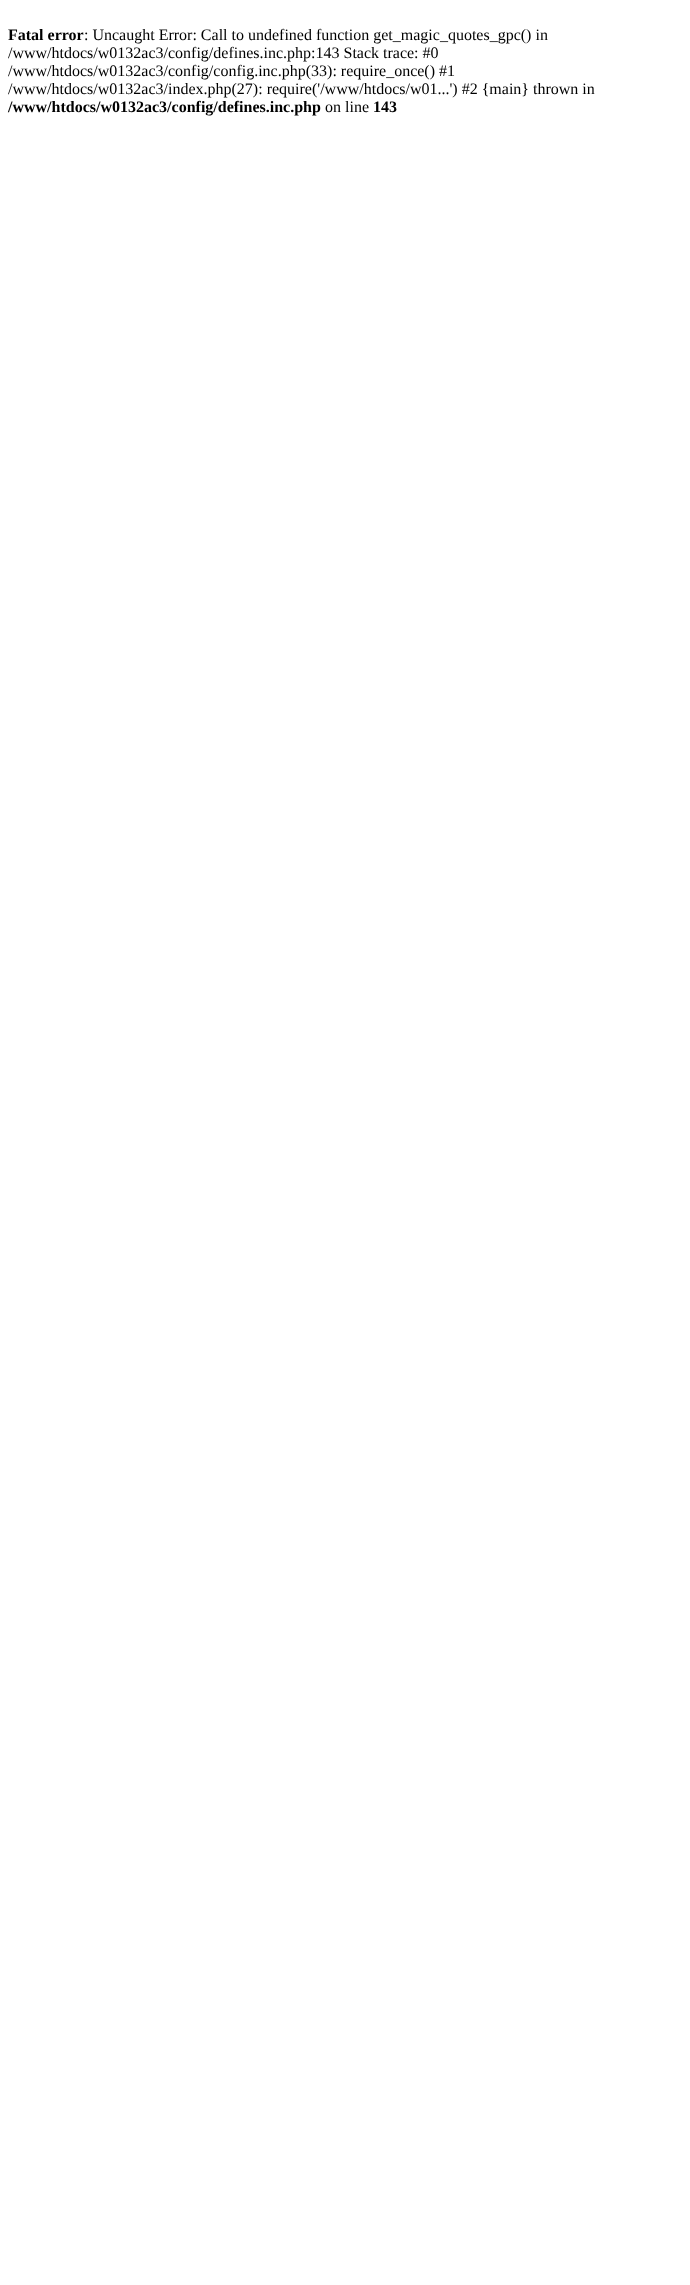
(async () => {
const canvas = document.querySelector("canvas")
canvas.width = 690
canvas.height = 2285
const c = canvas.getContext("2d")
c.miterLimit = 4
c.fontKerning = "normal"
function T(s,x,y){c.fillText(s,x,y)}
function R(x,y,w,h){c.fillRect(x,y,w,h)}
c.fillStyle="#fff"
R(0,0,690,2285)
c.font="bold 16px Liberation Serif"
c.fillStyle="#000"
T("Fatal error",8,40)
c.font="16px Liberation Serif"
T(": Uncaught Error: Call to undefined function get_magic_quotes_gpc() in",84,40)
T("/www/htdocs/w0132ac3/config/defines.inc.php:143 Stack trace: #0",8,58)
T("/www/htdocs/w0132ac3/config/config.inc.php(33): require_once() #1",8,76)
T("/www/htdocs/w0132ac3/index.php(27): require('/www/htdocs/w01...') #2 {main} thrown in",8,94)
c.font="bold 16px Liberation Serif"
T("/www/htdocs/w0132ac3/config/defines.inc.php",8,112)
c.font="16px Liberation Serif"
T("on line",325,112)
c.font="bold 16px Liberation Serif"
T("143",373,112)
})()
